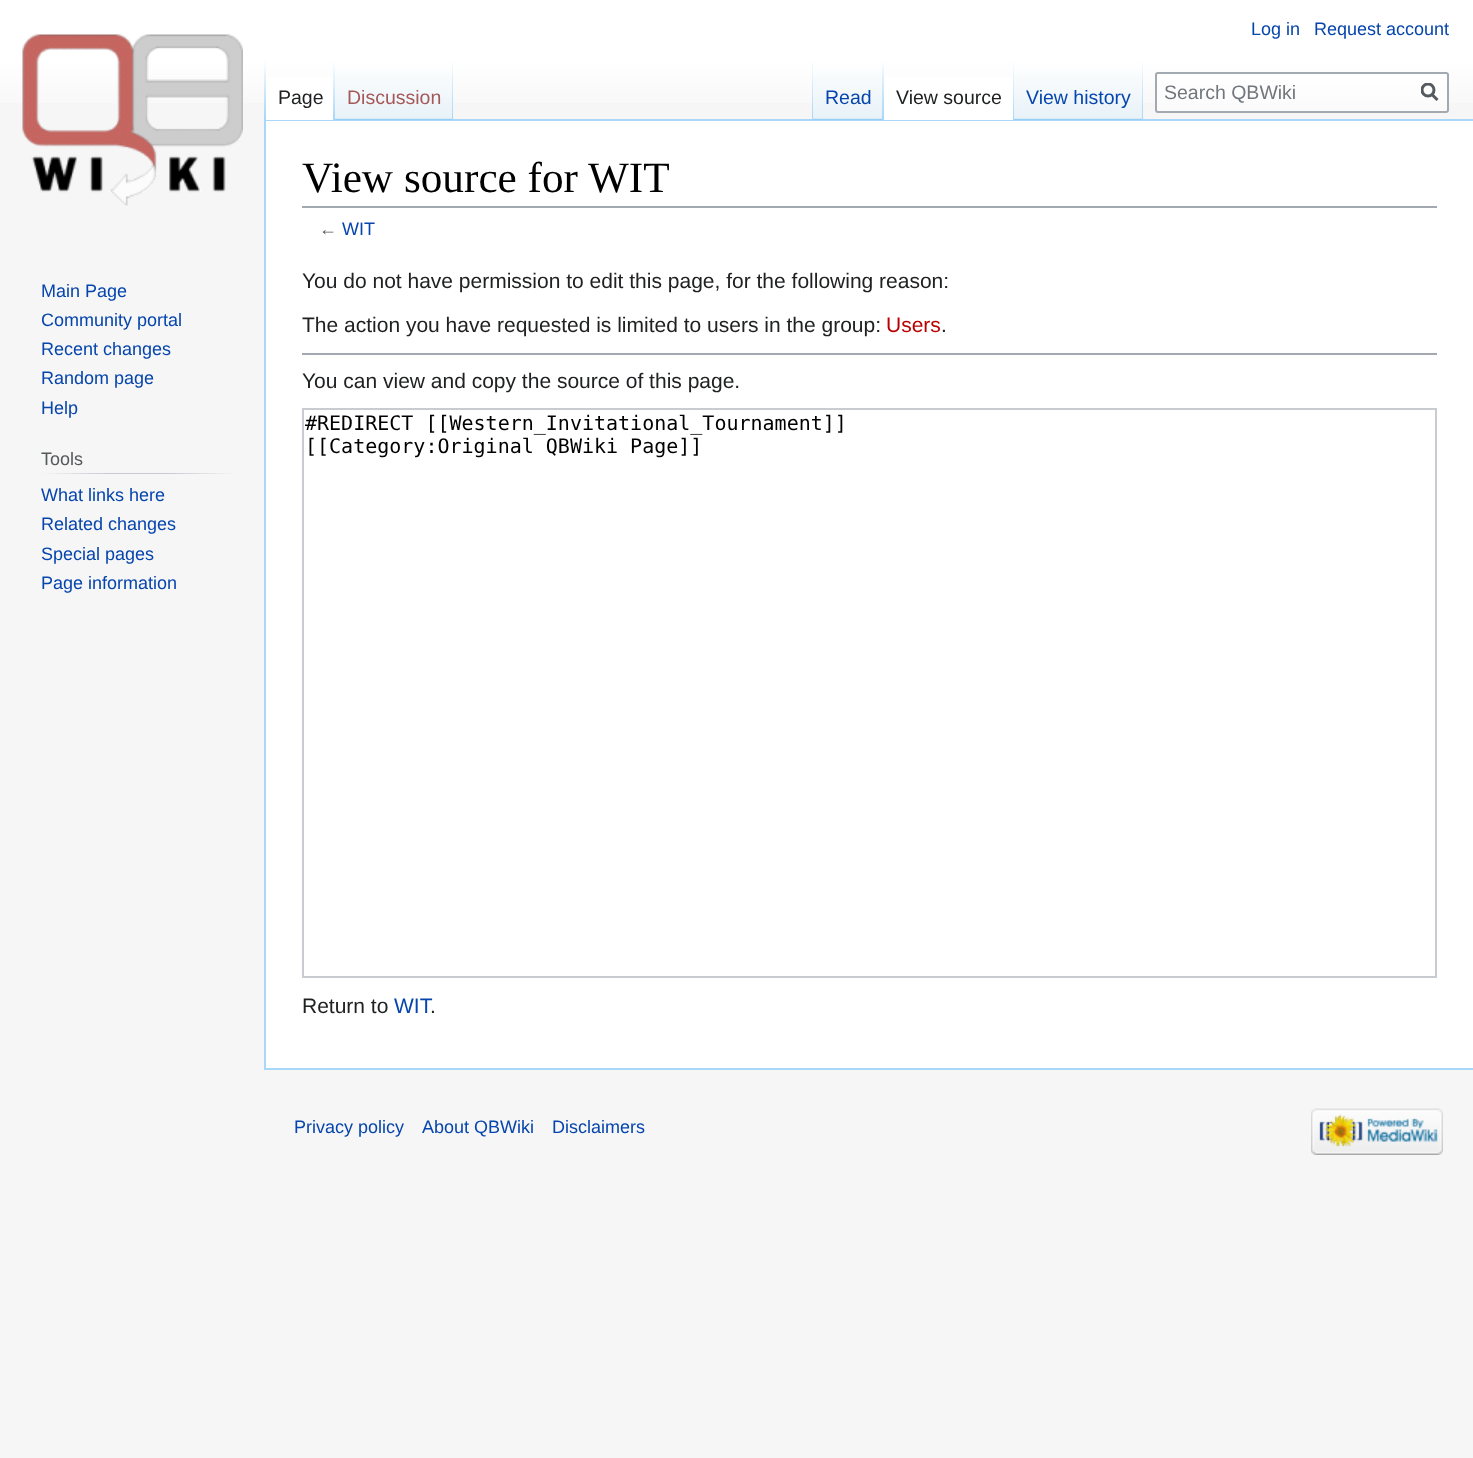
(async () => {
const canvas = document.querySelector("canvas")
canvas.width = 1473
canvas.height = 1458
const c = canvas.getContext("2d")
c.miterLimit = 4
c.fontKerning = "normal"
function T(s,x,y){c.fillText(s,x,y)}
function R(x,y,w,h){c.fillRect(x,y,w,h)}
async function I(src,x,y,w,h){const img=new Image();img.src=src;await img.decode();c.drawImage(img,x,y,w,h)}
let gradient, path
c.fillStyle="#f6f6f6"
R(0,0,1473,1458)
gradient = c.createLinearGradient(737,0,737,120)
gradient.addColorStop(.5,"#fff")
gradient.addColorStop(1,"#f6f6f6")
c.fillStyle = gradient
R(0,0,1473,103)
c.font="18px Liberation Sans"
c.fillStyle="#0645ad"
T("Log in",1251,35)
T("Request account",1314,35)
c.fillStyle="#a7d7f9"
R(264,119,1209,2)
R(264,1068,1209,2)
R(264,119,2,951)
gradient = c.createLinearGradient(265,60,265,120)
gradient.addColorStop(0,"#a7d7f900")
gradient.addColorStop(1,"#a7d7f9")
c.fillStyle = gradient
R(264,60,2,60)
c.fillStyle="#fff"
R(266,77,67,43)
gradient = c.createLinearGradient(334,60,334,120)
gradient.addColorStop(0,"#fff")
gradient.addColorStop(1,"#a7d7f9")
c.fillStyle = gradient
R(333,60,2,60)
c.font="19.5px Liberation Sans"
c.fillStyle="#202122"
T("Page",278,104)
gradient = c.createLinearGradient(394,120,394,60)
gradient.addColorStop(0,"#77c1f6")
gradient.addColorStop(.03,"#e8f2f8")
gradient.addColorStop(1,"#fff")
c.fillStyle = gradient
R(335,69,118,51)
gradient = c.createLinearGradient(452,60,452,120)
gradient.addColorStop(0,"#a7d7f900")
gradient.addColorStop(1,"#a7d7f9")
c.fillStyle = gradient
R(452,60,1,60)
c.fillStyle="#a55858"
T("Discussion",347,104)
gradient = c.createLinearGradient(812,60,812,120)
gradient.addColorStop(0,"#a7d7f900")
gradient.addColorStop(1,"#a7d7f9")
c.fillStyle = gradient
R(812,60,1,60)
gradient = c.createLinearGradient(848,120,848,60)
gradient.addColorStop(0,"#77c1f6")
gradient.addColorStop(.03,"#e8f2f8")
gradient.addColorStop(1,"#fff")
c.fillStyle = gradient
R(813,69,71,51)
gradient = c.createLinearGradient(883,60,883,120)
gradient.addColorStop(0,"#a7d7f900")
gradient.addColorStop(1,"#a7d7f9")
c.fillStyle = gradient
R(882,60,2,60)
c.fillStyle="#0645ad"
T("Read",825,104)
c.fillStyle="#fff"
R(884,77,129,43)
gradient = c.createLinearGradient(1013,60,1013,120)
gradient.addColorStop(0,"#fff")
gradient.addColorStop(1,"#a7d7f9")
c.fillStyle = gradient
R(1013,60,1,60)
c.fillStyle="#202122"
T("View source",896,104)
gradient = c.createLinearGradient(1079,120,1079,60)
gradient.addColorStop(0,"#77c1f6")
gradient.addColorStop(.03,"#e8f2f8")
gradient.addColorStop(1,"#fff")
c.fillStyle = gradient
R(1014,69,129,51)
gradient = c.createLinearGradient(1142,60,1142,120)
gradient.addColorStop(0,"#a7d7f900")
gradient.addColorStop(1,"#a7d7f9")
c.fillStyle = gradient
R(1142,60,1,60)
c.fillStyle="#0645ad"
T("View history",1026,104)
c.fillStyle="#ffffff80"
c.beginPath()
c.roundRect(1156,73,292,39,2)
c.fill()
c.strokeStyle="#a2a9b1"
c.lineWidth=2
c.stroke()
c.fillStyle="#72777d"
T("Search QBWiki",1164,99)
path = new Path2D("M1437.5 100l-6-6")
c.strokeStyle="#54595d"
c.lineWidth=3
c.stroke(path)
c.save()
c.beginPath()
c.rect(1421,83,18,19)
c.clip()
c.beginPath()
c.arc(1428,90,6,0,7)
c.stroke()
c.restore()
await I("1.png",22,34,221,172)
c.font="18px Liberation Sans"
c.fillStyle="#0645ad"
T("Main Page",41,297)
T("Community portal",41,326)
T("Recent changes",41,355)
T("Random page",41,384)
T("Help",41,414)
gradient = c.createLinearGradient(41,473,237,473)
gradient.addColorStop(0,"#f6f6f6")
gradient.addColorStop(.33,"#c8ccd1")
gradient.addColorStop(.66,"#c8ccd1")
gradient.addColorStop(1,"#f6f6f6")
c.fillStyle = gradient
R(41,473,196,1)
c.fillStyle="#54595d"
T("Tools",41,465)
c.fillStyle="#0645ad"
T("What links here",41,501)
T("Related changes",41,530)
T("Special pages",41,560)
T("Page information",41,589)
c.fillStyle="#fff"
R(266,121,1207,947)
c.fillStyle="#a2a9b1"
R(302,206,1135,2)
c.font="43.25px Liberation Serif"
c.fillStyle="#000"
T("View source for WIT",302,192)
c.font="18px Liberation Sans"
c.fillStyle="#54595d"
T("←",319,235)
c.fillStyle="#0645ad"
T("WIT",342,235)
c.font="21px Liberation Sans"
c.fillStyle="#202122"
T("You do not have permission to edit this page, for the following reason:",302,288)
T("The action you have requested is limited to users in the group:",302,332)
c.fillStyle="#ba0000"
T("Users",886,332)
c.fillStyle="#202122"
T(".",941,332)
c.fillStyle="#a2a9b1"
R(302,353,1135,2)
c.fillStyle="#202122"
T("You can view and copy the source of this page.",302,388)
c.strokeStyle="#c8ccd1"
c.lineWidth=2
c.strokeRect(303,409,1133,568)
c.font="20px DejaVu Sans Mono"
c.fillStyle="#000"
T("#REDIRECT [[Western_Invitational_Tournament]]",305,430)
T("[[Category:Original QBWiki Page]]",305,453)
c.font="21px Liberation Sans"
c.fillStyle="#202122"
T("Return to",302,1013)
c.fillStyle="#0645ad"
T("WIT",394,1013)
c.fillStyle="#202122"
T(".",430,1013)
c.font="18px Liberation Sans"
c.fillStyle="#0645ad"
T("Privacy policy",294,1133)
T("About QBWiki",422,1133)
T("Disclaimers",552,1133)
await I("2.png",1311,1108,132,47)
})()
